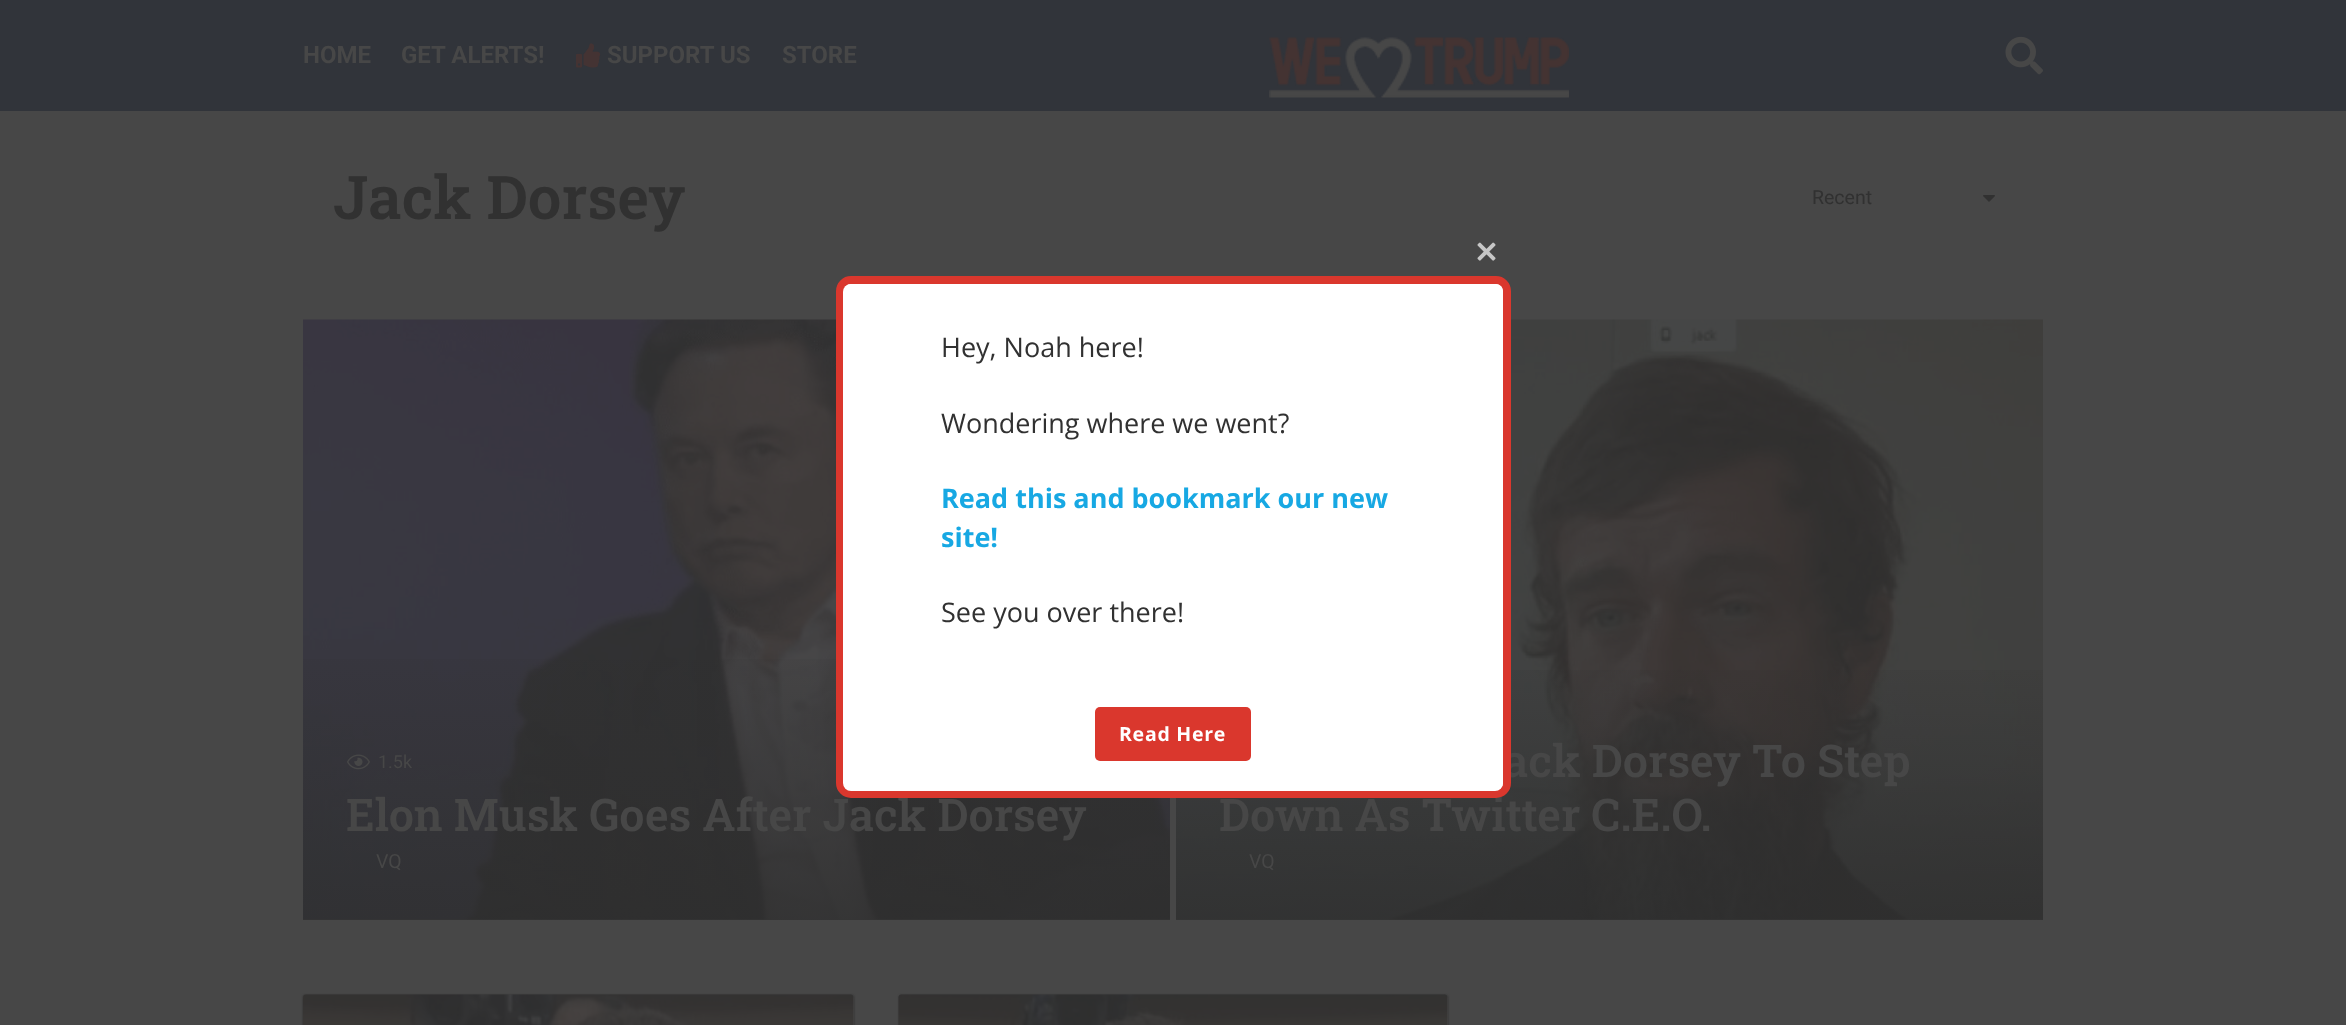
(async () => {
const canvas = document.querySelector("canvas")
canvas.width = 2346
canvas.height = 1025
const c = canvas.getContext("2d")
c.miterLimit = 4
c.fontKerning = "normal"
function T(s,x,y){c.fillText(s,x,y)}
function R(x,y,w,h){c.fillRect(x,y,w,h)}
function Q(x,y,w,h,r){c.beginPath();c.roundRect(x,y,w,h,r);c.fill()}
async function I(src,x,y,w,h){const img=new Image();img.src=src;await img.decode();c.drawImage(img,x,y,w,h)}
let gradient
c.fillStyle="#474747"
R(0,0,2346,1025)
c.fillStyle="#31343a"
R(0,0,2346,111)
c.font="bold 24px Roboto"
c.fillStyle="#474747"
T("HOME",303,63)
T("GET ALERTS!",401,63)
await I("1.png",576,43,25,25)
T("SUPPORT US",607,63)
T("STORE",782,63)
await I("2.png",1269,37,300,61)
await I("3.png",2005,36,38,39)
c.font="600 60px Roboto Slab"
c.fillStyle="#313131"
T("Jack Dorsey",333,219)
c.font="19.5px Roboto"
T("Recent",1812,204)
await I("4.png",1983,195,12,7)
c.fillStyle="#444"
R(303,919,867,1)
await I("5.png",303,319,867,601)
gradient = c.createLinearGradient(737,620,737,920)
gradient.addColorStop(0,"#2e2e2e00")
gradient.addColorStop(1,"#2e2e2eb3")
c.fillStyle = gradient
R(303,659,867,261)
await I("6.png",347,754,23,16)
c.font="18px Roboto"
c.fillStyle="#474747"
T("1.5k",378,768)
c.font="600 45px Roboto Slab"
T("Elon Musk Goes After Jack Dorsey",346,831)
c.font="19.5px Roboto"
T("VQ",376,868)
c.fillStyle="#444"
R(1176,919,867,1)
await I("7.png",1176,319,867,601)
gradient = c.createLinearGradient(1610,620,1610,920)
gradient.addColorStop(0,"#2e2e2e00")
gradient.addColorStop(1,"#2e2e2eb3")
c.fillStyle = gradient
R(1176,670,867,250)
c.font="600 45px Roboto Slab"
c.fillStyle="#474747"
T("ack Dorsey To Step",1503,777)
T("Down As Twitter C.E.O.",1219,831)
c.font="19.5px Roboto"
T("VQ",1249,868)
c.fillStyle="#2e2e2e"
c.filter="blur(1px)"
c.beginPath()
c.roundRect(303,995,551,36,3)
c.fill()
c.filter="none"
c.fillStyle="#474747"
Q(303,995,551,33,3)
await I("8.png",303,994,551,31)
c.fillStyle="#2e2e2e"
c.filter="blur(1px)"
c.beginPath()
c.roundRect(899,995,549,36,3)
c.fill()
c.filter="none"
c.fillStyle="#474747"
Q(899,995,549,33,3)
await I("9.png",898,994,550,31)
c.fillStyle="#fff"
c.beginPath()
c.roundRect(840,280,667,514,11)
c.fill()
c.strokeStyle="#da372d"
c.lineWidth=8
c.stroke()
await I("10.png",1477,242,19,19)
c.beginPath()
c.roundRect(843,284,660,391,[8,8,0,0])
c.fill()
c.font="27px Open Sans"
c.fillStyle="#313131"
T("Hey, Noah here!",941,357)
T("Wondering where we went?",941,433)
c.font="bold 27px Open Sans"
c.fillStyle="#17a8e3"
T("Read this and bookmark our new",941,508)
T("site!",941,547)
c.font="27px Open Sans"
c.fillStyle="#313131"
T("See you over there!",941,622)
c.fillStyle="#fff"
c.beginPath()
c.roundRect(843,675,660,116,[0,0,8,8])
c.fill()
c.fillStyle="#da372d"
Q(1095,707,156,54,5)
c.letterSpacing="0.75px"
c.font="bold 19.5px Open Sans"
c.fillStyle="#fff"
T("Read Here",1119,741)
})()
